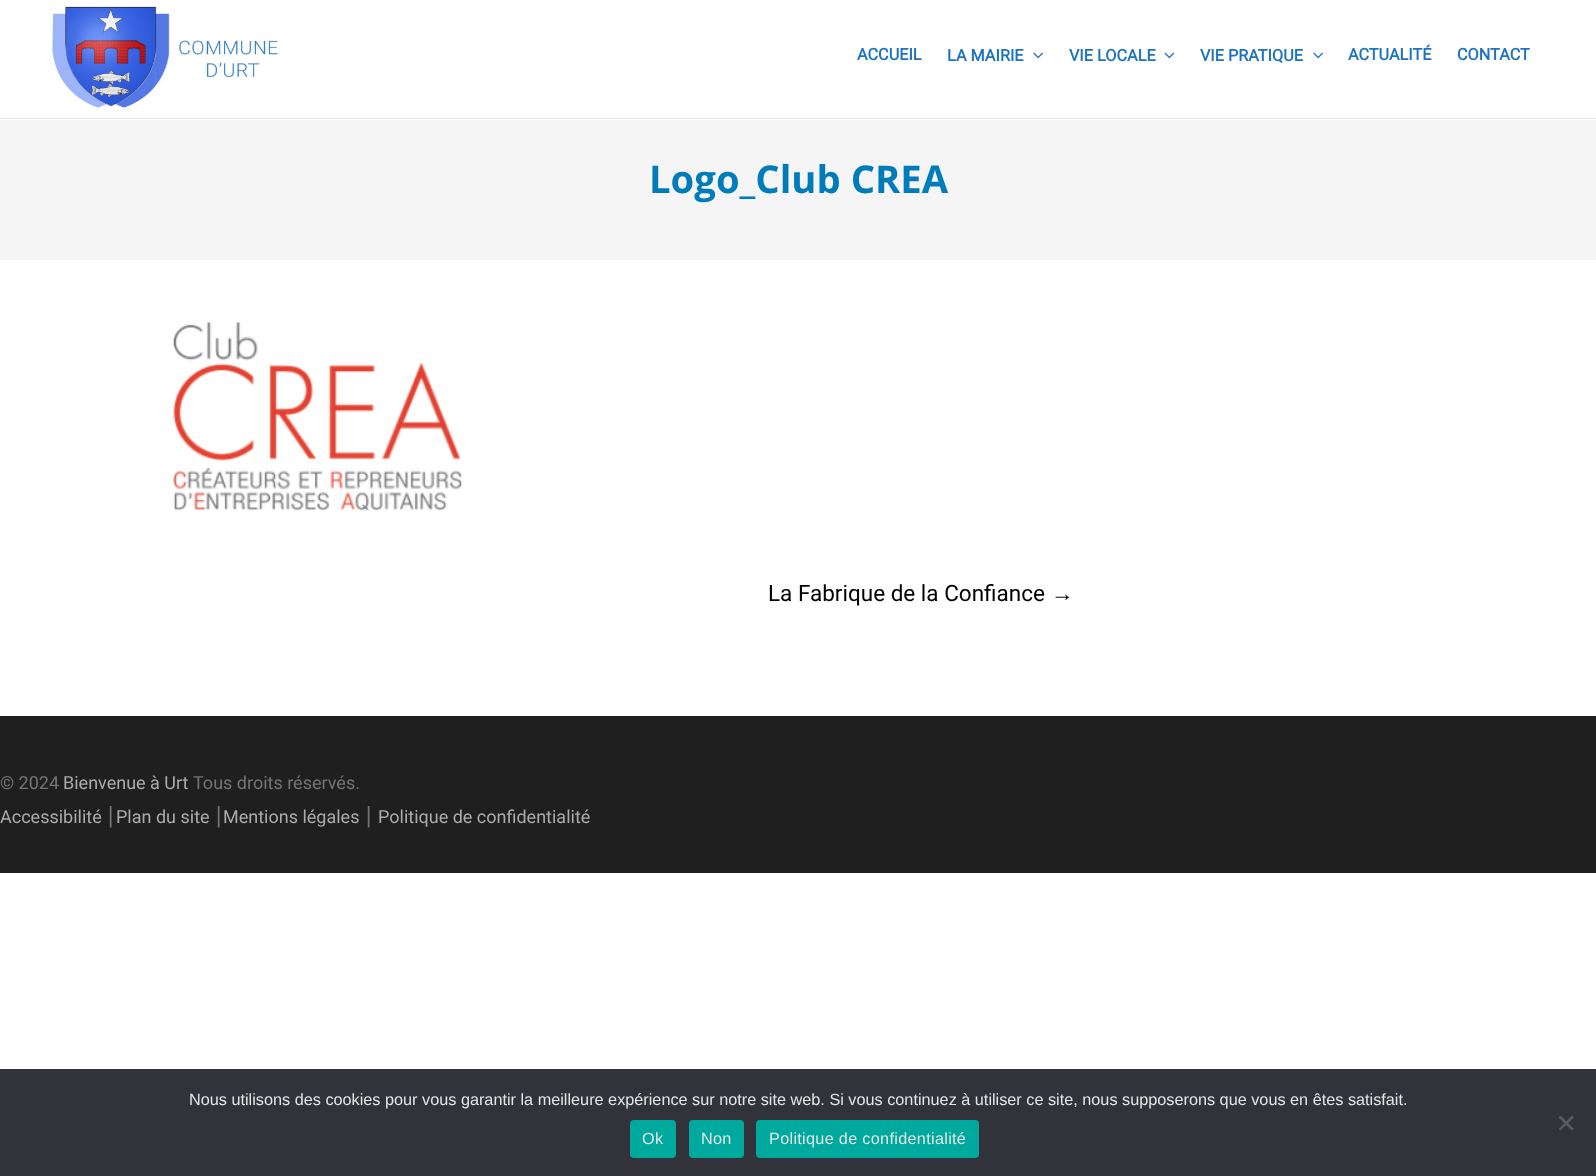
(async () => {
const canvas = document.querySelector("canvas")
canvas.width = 1596
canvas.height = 1176
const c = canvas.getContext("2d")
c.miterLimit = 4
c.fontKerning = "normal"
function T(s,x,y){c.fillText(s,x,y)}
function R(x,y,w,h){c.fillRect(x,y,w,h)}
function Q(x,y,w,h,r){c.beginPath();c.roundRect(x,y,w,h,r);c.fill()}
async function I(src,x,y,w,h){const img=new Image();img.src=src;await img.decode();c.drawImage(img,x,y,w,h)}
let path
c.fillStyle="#fff"
R(0,0,1596,1176)
c.fillStyle="#e6e6e6"
R(0,118,1596,1)
await I("1.png",52,6,227,104)
c.font="bold 16.25px Roboto"
c.fillStyle="#1e73be"
T("ACCUEIL",857,60)
T("LA MAIRIE",947,61)
await I("2.png",1033,52,10,7)
T("VIE LOCALE",1069,61)
await I("3.png",1164,52,11,7)
T("VIE PRATIQUE",1200,61)
await I("2.png",1313,52,10,7)
T("ACTUALITÉ",1348,60)
T("CONTACT",1457,60)
c.fillStyle="#f5f5f5"
R(0,120,1596,140)
c.font="bold 38.25px Open Sans"
c.fillStyle="#007cba"
T("Logo_Club CREA",649,193)
await I("4.png",173,322,289,189)
c.font="22.5px Roboto"
c.fillStyle="#000"
T("La Fabrique de la Confiance",768,601)
c.font="22.5px Liberation Serif"
T("→",1051,601)
c.fillStyle="#1f1f1f"
R(0,716,1596,157)
c.font="18px Roboto"
c.fillStyle="#747475"
T("© 2024",0,789)
c.fillStyle="#ababac"
T("Bienvenue à Urt",63,789)
c.fillStyle="#747475"
T("Tous droits réservés.",193,789)
c.fillStyle="#ababac"
T("Accessibilité",0,823)
c.font="18px DejaVu Sans"
c.fillStyle="#747475"
T("⎮",106,823)
c.font="18px Roboto"
c.fillStyle="#ababac"
T("Plan du site",116,823)
c.font="18px DejaVu Sans"
c.fillStyle="#747475"
T("⎮",214,823)
c.font="18px Roboto"
c.fillStyle="#ababac"
T("Mentions légales",223,823)
c.font="18px DejaVu Sans"
c.fillStyle="#747475"
T("⎮",364,823)
c.font="18px Roboto"
c.fillStyle="#ababac"
T("Politique de confidentialité",378,823)
c.fillStyle="#32323a"
R(0,1069,1596,107)
c.font="16.25px Liberation Sans"
c.fillStyle="#e5e5e5"
T("Nous utilisons des cookies pour vous garantir la meilleure expérience sur notre site web. Si vous continuez à utiliser ce site, nous supposerons que vous en êtes satisfait.",189,1105)
c.fillStyle="#59595d"
path = new Path2D("M1572 1115.5l2 2l-13.5 13l-2-1.5z")
c.fill(path)
path = new Path2D("M1558.5 1117.5l2-2l13.5 13.5l-2 1.5z")
c.fill(path)
c.fillStyle="#00a99d"
Q(630,1120,46,38,4)
c.letterSpacing="0.3px"
c.fillStyle="#e5e5e5"
T("Ok",642,1144)
c.fillStyle="#00a99d"
Q(689,1120,55,38,4)
c.fillStyle="#e5e5e5"
T("Non",701,1144)
c.fillStyle="#00a99d"
Q(756,1120,223,38,4)
c.fillStyle="#e5e5e5"
T("Politique de confidentialité",769,1144)
})()
